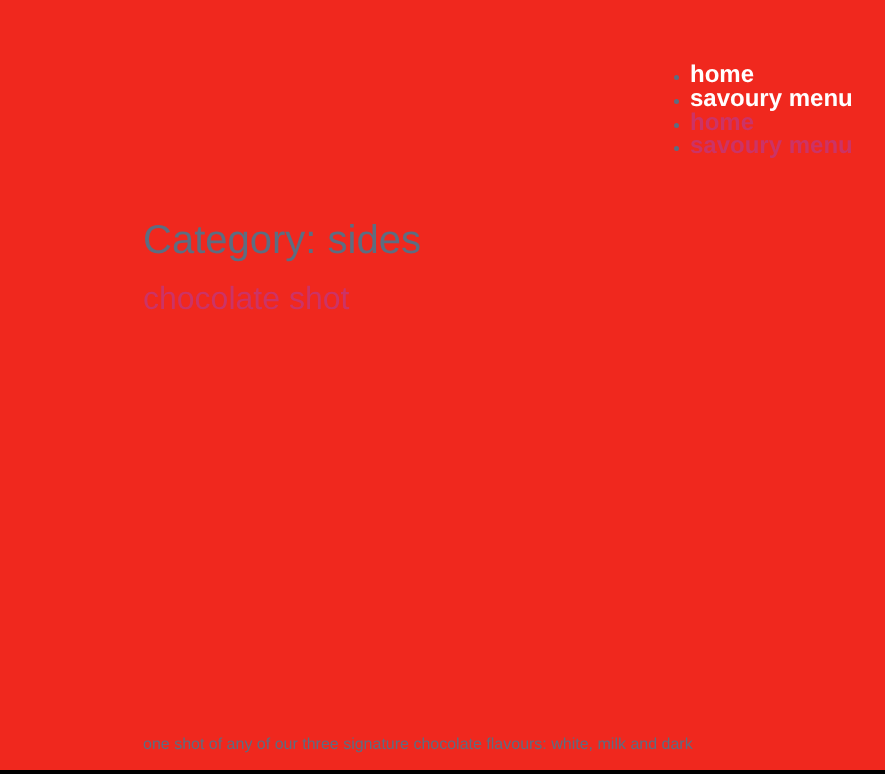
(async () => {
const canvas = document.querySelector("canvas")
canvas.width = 885
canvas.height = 774
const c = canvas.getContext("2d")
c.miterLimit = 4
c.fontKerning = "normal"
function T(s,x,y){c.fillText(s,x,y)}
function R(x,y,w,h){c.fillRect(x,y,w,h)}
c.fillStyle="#f0281e"
R(0,0,885,774)
c.fillStyle="#5d6d81"
c.beginPath()
c.arc(676.5,77.5,2.5,0,7)
c.fill()
c.font="bold 24px Liberation Sans"
c.fillStyle="#fff"
T("home",690,82)
c.fillStyle="#5d6d81"
c.beginPath()
c.arc(676.5,101.5,2.5,0,7)
c.fill()
c.fillStyle="#fff"
T("savoury menu",690,106)
c.fillStyle="#5d6d81"
c.beginPath()
c.arc(676.5,125.5,2.5,0,7)
c.fill()
c.fillStyle="#c36"
T("home",690,130)
c.fillStyle="#5d6d81"
c.beginPath()
c.arc(676.5,148.5,2.5,0,7)
c.fill()
c.fillStyle="#c36"
T("savoury menu",690,153)
c.font="40px Liberation Sans"
c.fillStyle="#5d6d81"
T("Category: sides",143,253)
c.font="32px Liberation Sans"
c.fillStyle="#c36"
T("chocolate shot",143,309)
c.font="16px Liberation Sans"
c.fillStyle="#5d6d81"
T("one shot of any of our three signature chocolate flavours: white, milk and dark",143,749)
c.fillStyle="#000"
R(0,770,885,4)
})()
